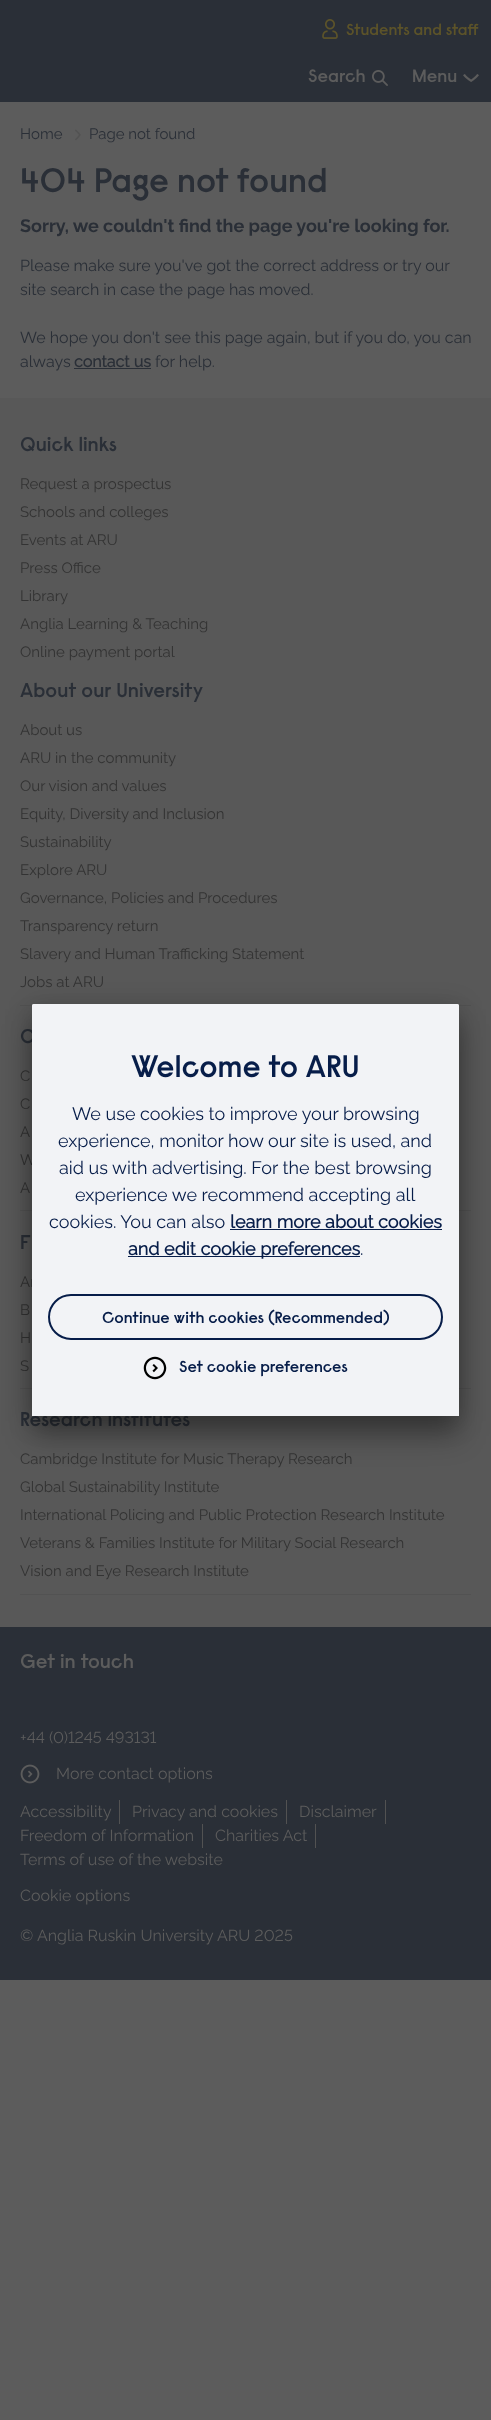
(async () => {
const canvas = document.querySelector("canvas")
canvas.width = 491
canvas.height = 2420
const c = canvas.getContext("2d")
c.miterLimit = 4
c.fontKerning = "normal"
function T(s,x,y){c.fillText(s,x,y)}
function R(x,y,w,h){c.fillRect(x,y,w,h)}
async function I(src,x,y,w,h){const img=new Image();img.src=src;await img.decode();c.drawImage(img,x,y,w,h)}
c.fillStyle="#5c5c5c"
R(0,0,491,2420)
c.fillStyle="#2a2f37"
R(0,0,491,102)
await I("1.png",322,19,16,20)
c.font="600 16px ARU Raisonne"
c.fillStyle="#5c5329"
T("Students and staff",346,35)
c.font="600 18px ARU Raisonne"
c.fillStyle="#5c5c5c"
T("Search",308,82)
await I("2.png",372,70,16,16)
T("Menu",412,82)
await I("3.png",463,74,16,8)
c.font="15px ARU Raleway"
c.fillStyle="#2a2f37"
T("Home",20,139)
await I("4.png",75,129,6,12)
T("Page not found",89,139)
c.font="600 34px ARU Raisonne"
T("404 Page not found",20,192)
c.font="bold 18px ARU Raleway"
T("Sorry, we couldn't find the page you're looking for.",20,232)
c.font="16px ARU Raleway"
T("Please make sure you've got the correct address or try our",20,271)
T("site search in case the page has moved.",20,295)
T("We hope you don't see this page again, but if you do, you can",20,343)
T("always",20,367)
c.font="bold 16px 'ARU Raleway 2'"
T("contact us",74,367)
R(74,368,77,1)
c.font="16px ARU Raleway"
T("for help.",155,367)
c.fillStyle="#585858"
R(0,398,491,1229)
c.font="600 20px ARU Raisonne"
c.fillStyle="#2a2f37"
T("Quick links",20,451)
c.font="15px ARU Raleway"
c.fillStyle="#333"
T("Request a prospectus",20,489)
T("Schools and colleges",20,517)
T("Events at ARU",20,545)
T("Press Office",20,573)
T("Library",20,601)
T("Anglia Learning & Teaching",20,629)
T("Online payment portal",20,657)
c.fillStyle="#525252"
R(20,1005,451,1)
c.font="600 20px ARU Raisonne"
c.fillStyle="#2a2f37"
T("About our University",20,697)
c.font="15px ARU Raleway"
c.fillStyle="#333"
T("About us",20,735)
T("ARU in the community",20,763)
T("Our vision and values",20,791)
T("Equity, Diversity and Inclusion",20,819)
T("Sustainability",20,847)
T("Explore ARU",20,875)
T("Governance, Policies and Procedures",20,903)
T("Transparency return",20,931)
T("Slavery and Human Trafficking Statement",20,959)
T("Jobs at ARU",20,987)
c.fillStyle="#525252"
R(20,1210,451,1)
c.font="600 20px ARU Raisonne"
c.fillStyle="#2a2f37"
T("O",20,1043)
c.font="15px ARU Raleway"
c.fillStyle="#333"
T("C",20,1081)
T("C",20,1109)
T("A",20,1137)
T("W",20,1165)
T("A",20,1193)
c.fillStyle="#525252"
R(20,1388,451,1)
c.font="600 20px ARU Raisonne"
c.fillStyle="#2a2f37"
T("F",20,1249)
c.font="15px ARU Raleway"
c.fillStyle="#333"
T("Ar",20,1287)
T("B",20,1315)
T("H",20,1343)
T("S",20,1371)
c.fillStyle="#525252"
R(20,1594,451,1)
c.font="600 20px ARU Raisonne"
c.fillStyle="#2a2f37"
T("Research institutes",20,1426)
c.font="15px ARU Raleway"
c.fillStyle="#333"
T("Cambridge Institute for Music Therapy Research",20,1464)
T("Global Sustainability Institute",20,1492)
T("International Policing and Public Protection Research Institute",20,1520)
T("Veterans & Families Institute for Military Social Research",20,1548)
T("Vision and Eye Research Institute",20,1576)
c.fillStyle="#2a2f37"
R(0,1627,491,353)
c.font="600 20px ARU Raisonne"
c.fillStyle="#5c5c5c"
T("Get in touch",20,1668)
c.font="16px ARU Raleway"
T("+44 (0)1245 493131",20,1743)
await I("5.png",20,1764,20,20)
T("More contact options",56,1779)
c.fillStyle="#525252"
R(119,1800,1,24)
c.fillStyle="#5c5c5c"
T("Accessibility",20,1817)
c.fillStyle="#525252"
R(286,1800,1,24)
c.fillStyle="#5c5c5c"
T("Privacy and cookies",132,1817)
c.fillStyle="#525252"
R(385,1800,1,24)
c.fillStyle="#5c5c5c"
T("Disclaimer",299,1817)
c.fillStyle="#525252"
R(202,1824,1,24)
c.fillStyle="#5c5c5c"
T("Freedom of Information",20,1841)
c.fillStyle="#525252"
R(315,1824,1,24)
c.fillStyle="#5c5c5c"
T("Charities Act",215,1841)
T("Terms of use of the website",20,1865)
T("Cookie options",20,1901)
T("© Anglia Ruskin University ARU 2025",20,1941)
c.fillStyle="#0000004d"
c.filter="blur(14px)"
c.beginPath()
c.roundRect(32,1024,427,412,2)
c.fill()
c.filter="none"
c.fillStyle="#00000038"
c.filter="blur(13px)"
c.beginPath()
c.roundRect(32,1009,427,412,2)
c.fill()
c.filter="none"
c.fillStyle="#f2f3f6"
c.beginPath()
c.roundRect(32,1004,427,412,[2,2,0,0])
c.fill()
c.beginPath()
c.roundRect(32,1004,427,278,[2,2,0,0])
c.fill()
c.font="600 31px ARU Raisonne"
c.fillStyle="#071d49"
T("Welcome to ARU",131,1077)
c.font="18px ARU Raleway"
T("We use cookies to improve your browsing",72,1120)
T("experience, monitor how our site is used, and",58,1147)
T("aid us with advertising. For the best browsing",59,1174)
T("experience we recommend accepting all",75,1201)
T("cookies. You can also",49,1228)
c.font="bold 18px 'ARU Raleway 2'"
T("learn more about cookies",230,1228)
R(230,1229,212,1)
R(128,1256,232,1)
T("and edit cookie preferences",128,1255)
c.font="18px ARU Raleway"
T(".",360,1255)
c.beginPath()
c.roundRect(49,1295,393,44,22)
c.strokeStyle="#071d49"
c.lineWidth=2
c.stroke()
c.font="600 16px ARU Raisonne"
T("Continue with cookies (Recommended)",102,1323)
await I("6.png",143,1356,24,24)
T("Set cookie preferences",179,1372)
})()
